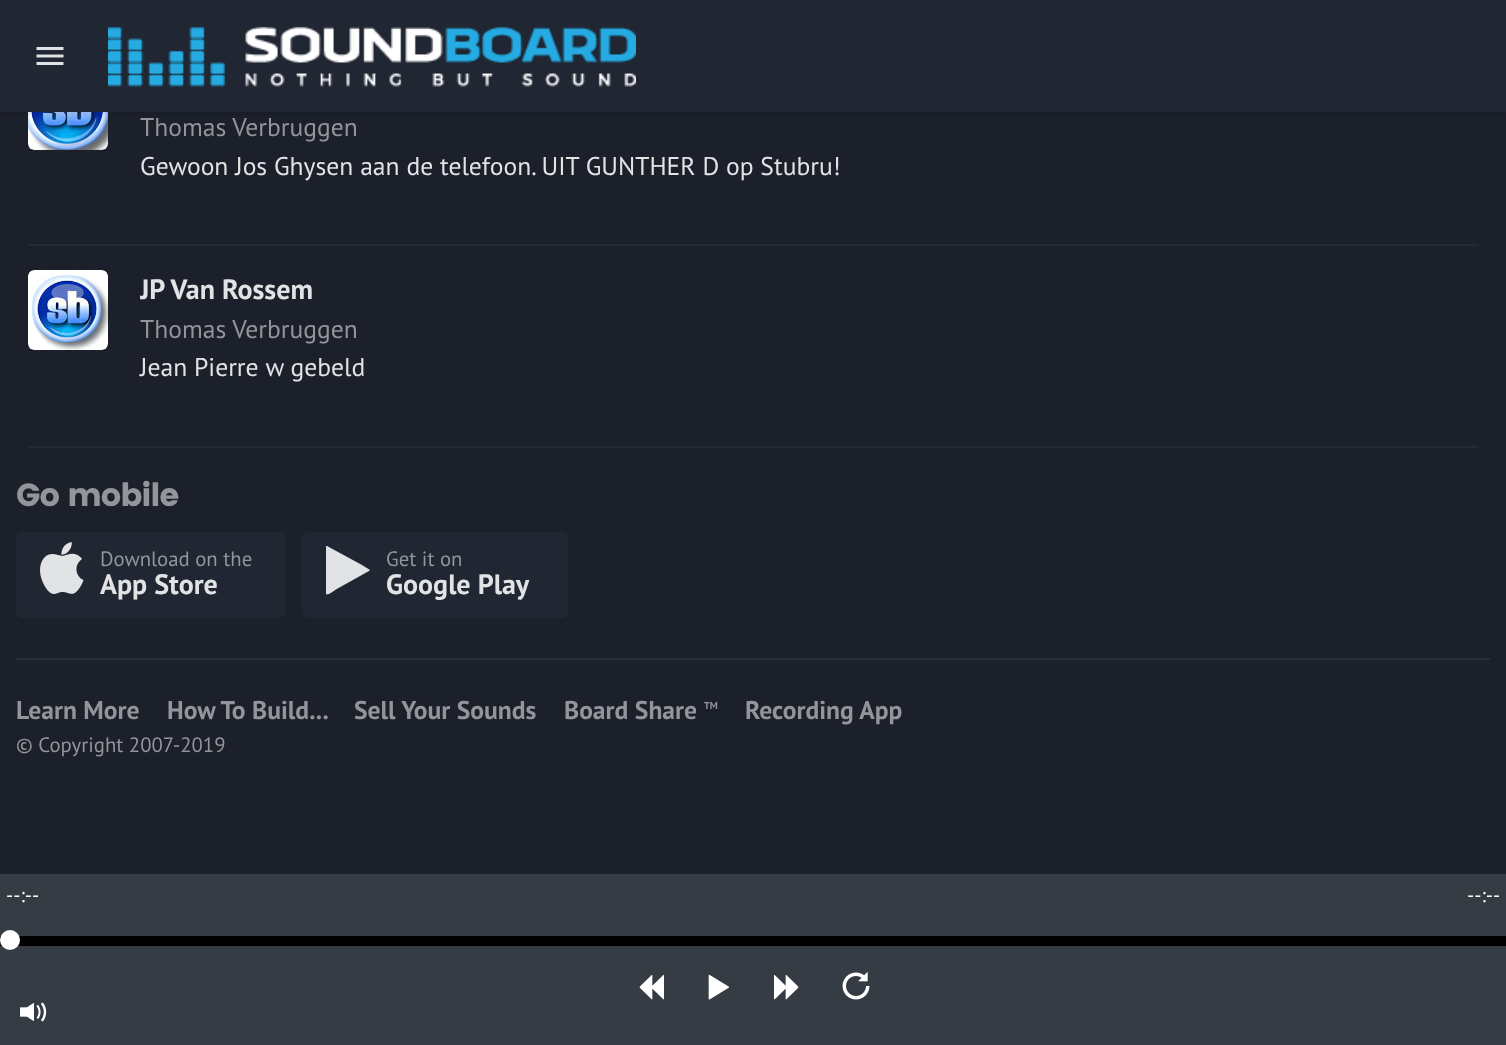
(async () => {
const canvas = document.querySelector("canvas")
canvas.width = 1506
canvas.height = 1045
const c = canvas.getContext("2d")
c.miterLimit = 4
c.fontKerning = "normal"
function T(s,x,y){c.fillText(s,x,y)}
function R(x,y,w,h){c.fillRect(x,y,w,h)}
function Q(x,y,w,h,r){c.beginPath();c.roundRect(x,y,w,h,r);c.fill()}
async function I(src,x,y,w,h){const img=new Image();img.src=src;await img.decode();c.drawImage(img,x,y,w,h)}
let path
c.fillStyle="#1c202b"
R(0,0,1506,1045)
c.fillStyle="#2e323a"
Q(28,70,80,80,6)
await I("3.png",28,112,80,38)
c.fillStyle="#0000001a"
c.filter="blur(2px)"
c.beginPath()
c.rect(0,2,1506,112)
c.fill()
c.filter="none"
c.fillStyle="#212633"
R(0,0,1506,112)
await I("1.png",36,47,28,18)
await I("2.png",108,26,528,61)
c.font="25.6px PT Sans"
c.fillStyle="#929599"
T("Thomas Verbruggen",140,136)
c.fillStyle="#e2e3e4"
T("Gewoon Jos Ghysen aan de telefoon. UIT GUNTHER D op Stubru!",140,175)
c.fillStyle="#252933"
R(28,244,1450,2)
c.fillStyle="#2e323a"
Q(28,270,80,80,6)
await I("4.png",28,270,80,80)
c.save()
c.beginPath()
c.rect(140,270,1338,40)
c.clip()
c.font="bold 28px PT Sans"
c.fillStyle="#e2e3e4"
T("JP Van Rossem",140,299)
c.restore()
c.fillStyle="#929599"
T("Thomas Verbruggen",140,338)
c.fillStyle="#e2e3e4"
T("Jean Pierre w gebeld",140,376)
c.fillStyle="#252933"
R(28,446,1450,2)
c.letterSpacing="-1.25px"
c.font="bold 32px Poppins"
c.fillStyle="#929599"
T("Go mobile",16,506)
c.fillStyle="#212633"
Q(16,532,270,86,6)
await I("5.png",40,542,44,52)
c.letterSpacing="0px"
c.font="20.75px PT Sans"
c.fillStyle="#929599"
T("Download on the",100,566)
c.font="bold 28px PT Sans"
c.fillStyle="#e2e3e4"
T("App Store",100,594)
c.fillStyle="#212633"
Q(302,532,266,86,6)
c.fillStyle="#e2e3e4"
path = new Path2D("M369 571l-34 19c-1 1-8 6-9 4v-48h1l35 19l8 5z")
c.fill(path)
c.font="20.75px PT Sans"
c.fillStyle="#929599"
T("Get it on",386,566)
c.font="bold 28px PT Sans"
c.fillStyle="#e2e3e4"
T("Google Play",386,594)
c.fillStyle="#282d38"
R(16,658,1474,2)
c.font="bold 25.6px PT Sans"
c.fillStyle="#929599"
T("Learn More",16,719)
T("How To Build...",167,719)
T("Sell Your Sounds",354,719)
T("Board Share",564,719)
c.font="bold 10px PT Sans"
T("TM",704,709)
c.font="bold 25.6px PT Sans"
T("Recording App",745,719)
c.font="20.75px PT Sans"
T("© Copyright 2007-2019",16,752)
c.fillStyle="#363c43"
R(0,874,1506,171)
c.font="20px PT Sans"
c.fillStyle="#fff"
T("--:--",6,902)
T("--:--",1467,902)
c.fillStyle="#000"
R(0,936,1506,10)
c.fillStyle="#fff"
c.beginPath()
c.arc(10,940,10,0,7)
c.fill()
await I("6.png",639,974,25,26)
await I("7.png",708,974,21,26)
await I("8.png",774,974,25,26)
await I("9.png",842,972,28,28)
await I("10.png",20,1002,27,20)
})()
